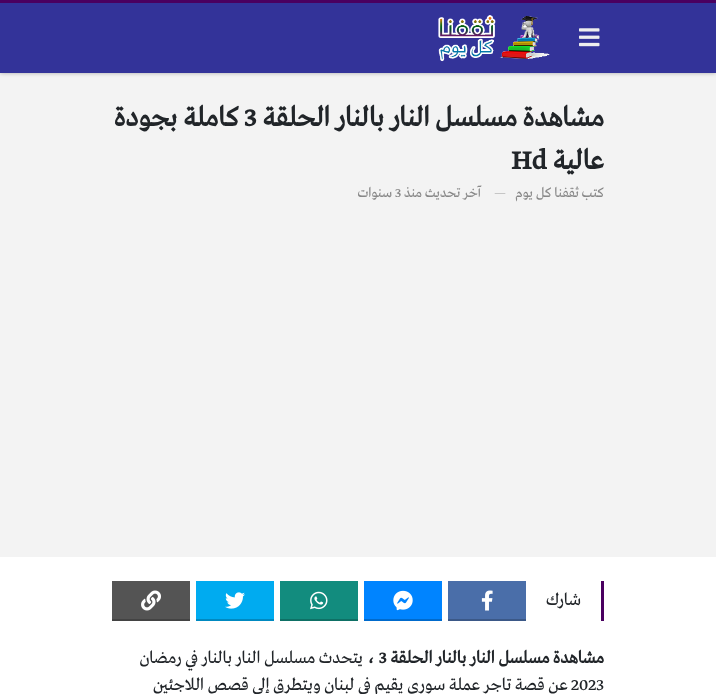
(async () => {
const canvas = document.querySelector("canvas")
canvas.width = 716
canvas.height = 694
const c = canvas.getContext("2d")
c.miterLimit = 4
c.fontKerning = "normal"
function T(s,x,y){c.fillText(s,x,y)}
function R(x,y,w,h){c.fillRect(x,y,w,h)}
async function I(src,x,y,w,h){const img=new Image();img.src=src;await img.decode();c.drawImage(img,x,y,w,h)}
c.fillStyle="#f3f3f3"
R(0,0,716,694)
c.fillStyle="#0000004d"
c.filter="blur(2px)"
c.beginPath()
c.rect(0,0,716,73)
c.fill()
c.filter="none"
c.fillStyle="#4a0060"
R(0,0,716,3)
c.fillStyle="#339"
R(0,3,716,70)
await I("1.png",579,28,21,19)
await I("2.png",438,15,112,47)
c.direction="rtl"
c.font="bold 28.75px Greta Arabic"
c.fillStyle="#212529"
T("مشاهدة مسلسل النار بالنار الحلقة",604,126)
c.direction="ltr"
T("3",244,126)
c.direction="rtl"
T("كاملة بجودة",239,126)
T("عالية",604,169)
c.direction="ltr"
T("Hd",511,169)
c.direction="rtl"
c.font="14.5px Greta Arabic"
c.fillStyle="#888"
T("كتب",604,197)
T("ثقفنا كل يوم",579,197)
c.direction="ltr"
c.fillStyle="#bebebe"
T("—",494,197)
c.direction="rtl"
c.fillStyle="#888"
T("آخر تحديث",481,197)
T("منذ",422,197)
c.direction="ltr"
T("3",395,197)
c.direction="rtl"
T("سنوات",392,197)
c.fillStyle="#fff"
R(0,557,716,137)
c.fillStyle="#4a0060"
R(601,581,3,40)
c.font="18px Greta Arabic"
c.fillStyle="#212529"
T("شارك",581,605)
c.fillStyle="#4a6ea9"
R(448,581,78,38)
c.fillStyle="#3b5887"
R(448,619,78,2)
await I("3.png",481,590,12,21)
c.fillStyle="#0084ff"
R(364,581,78,38)
c.fillStyle="#006acc"
R(364,619,78,2)
await I("4.png",393,590,20,21)
c.fillStyle="#128c7e"
R(280,581,78,38)
c.fillStyle="#0e7065"
R(280,619,78,2)
await I("5.png",310,591,18,19)
c.fillStyle="#00abf0"
R(196,581,78,38)
c.fillStyle="#0089c0"
R(196,619,78,2)
await I("6.png",225,592,20,17)
c.fillStyle="#545454"
R(112,581,78,38)
c.fillStyle="#434343"
R(112,619,78,2)
await I("7.png",141,590,20,21)
c.font="bold 18px Greta Arabic"
c.fillStyle="#212529"
T("مشاهدة مسلسل النار بالنار الحلقة",604,663)
c.direction="ltr"
T("، 3",367,663)
c.direction="rtl"
c.font="18px Greta Arabic"
T("يتحدث مسلسل النار بالنار في رمضان",363,663)
c.direction="ltr"
T("2023",571,690)
c.direction="rtl"
T("عن قصة تاجر عملة سوري يقيم في لبنان ويتطرق إلى قصص اللاجئين",568,690)
})()
